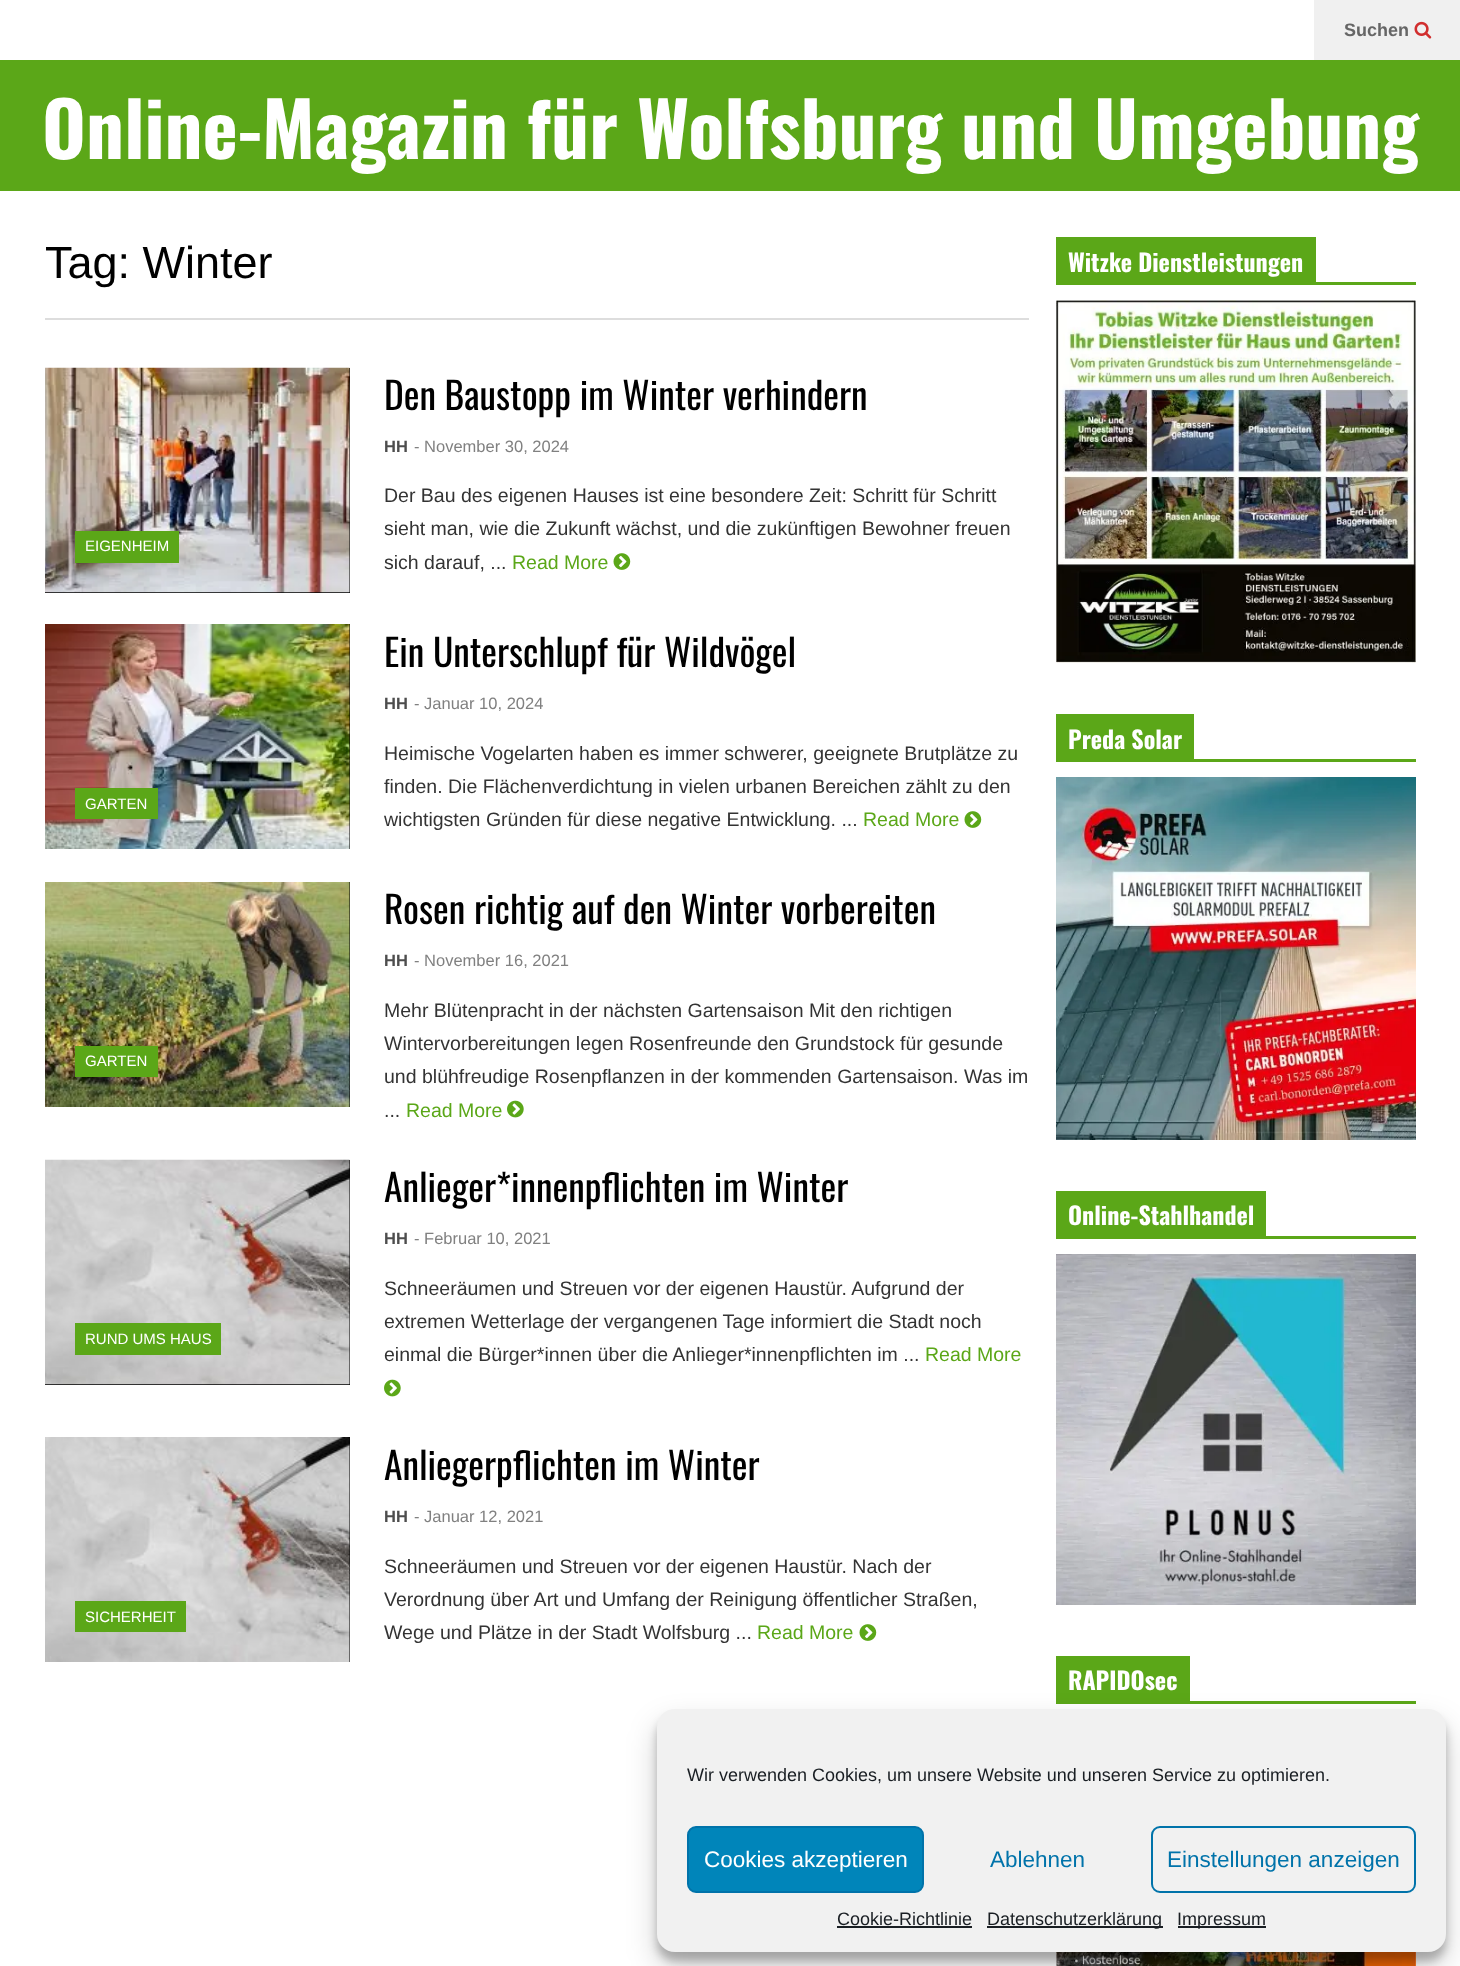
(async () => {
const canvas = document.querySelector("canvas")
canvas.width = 1460
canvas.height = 1966
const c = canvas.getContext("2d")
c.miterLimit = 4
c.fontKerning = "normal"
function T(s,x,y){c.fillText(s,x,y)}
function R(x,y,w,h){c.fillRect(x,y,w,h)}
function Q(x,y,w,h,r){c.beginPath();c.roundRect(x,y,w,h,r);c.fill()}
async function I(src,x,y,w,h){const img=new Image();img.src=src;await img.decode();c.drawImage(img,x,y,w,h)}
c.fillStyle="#fff"
R(0,0,1460,1966)
c.fillStyle="#f0f0f0"
R(1314,0,146,60)
c.font="bold 18px Liberation Sans"
c.fillStyle="#666"
T("Suchen",1344,36)
await I("1.png",1414,21,18,18)
c.fillStyle="#5ba718"
R(0,60,1460,131)
c.font="bold 75px Oswald"
c.fillStyle="#fff"
T("Online-Magazin für Wolfsburg und Umgebung",42,159)
c.fillStyle="#ddd"
R(45,318,984,2)
c.font="45px Liberation Sans"
c.fillStyle="#000"
T("Tag: Winter",45,278)
R(45,368,305,225)
await I("2.png",45,367,305,226)
c.fillStyle="#5ba718"
R(75,531,104,32)
c.font="15px Liberation Sans"
c.fillStyle="#fff"
T("EIGENHEIM",85,551)
c.font="37.5px Oswald"
c.fillStyle="#000"
T("Den Baustopp im Winter verhindern",384,410)
c.font="bold 16.5px Liberation Sans"
c.fillStyle="#4d4d4d"
T("HH",384,452)
c.font="16.5px Liberation Sans"
c.fillStyle="#808080"
T("- November 30, 2024",414,452)
c.font="19.5px Liberation Sans"
c.fillStyle="#333"
T("Der Bau des eigenen Hauses ist eine besondere Zeit: Schritt für Schritt",384,502)
T("sieht man, wie die Zukunft wächst, und die zukünftigen Bewohner freuen",384,535)
T("sich darauf, ...",384,569)
c.fillStyle="#5ba718"
T("Read More",512,569)
await I("3.png",613,553,18,17)
c.fillStyle="#000"
R(349,624,1,225)
await I("4.png",45,624,305,225)
c.fillStyle="#5ba718"
R(75,788,83,31)
c.font="15px Liberation Sans"
c.fillStyle="#fff"
T("GARTEN",85,809)
c.font="37.5px Oswald"
c.fillStyle="#000"
T("Ein Unterschlupf für Wildvögel",384,667)
c.font="bold 16.5px Liberation Sans"
c.fillStyle="#4d4d4d"
T("HH",384,709)
c.font="16.5px Liberation Sans"
c.fillStyle="#808080"
T("- Januar 10, 2024",414,709)
c.font="19.5px Liberation Sans"
c.fillStyle="#333"
T("Heimische Vogelarten haben es immer schwerer, geeignete Brutplätze zu",384,760)
T("finden. Die Flächenverdichtung in vielen urbanen Bereichen zählt zu den",384,793)
T("wichtigsten Gründen für diese negative Entwicklung. ...",384,826)
c.fillStyle="#5ba718"
T("Read More",863,826)
await I("3.png",964,811,18,17)
c.fillStyle="#000"
R(349,882,1,225)
await I("5.png",45,882,305,225)
c.fillStyle="#5ba718"
R(75,1046,83,31)
c.font="15px Liberation Sans"
c.fillStyle="#fff"
T("GARTEN",85,1066)
c.font="37.5px Oswald"
c.fillStyle="#000"
T("Rosen richtig auf den Winter vorbereiten",384,924)
c.font="bold 16.5px Liberation Sans"
c.fillStyle="#4d4d4d"
T("HH",384,966)
c.font="16.5px Liberation Sans"
c.fillStyle="#808080"
T("- November 16, 2021",414,966)
c.font="19.5px Liberation Sans"
c.fillStyle="#333"
T("Mehr Blütenpracht in der nächsten Gartensaison Mit den richtigen",384,1017)
T("Wintervorbereitungen legen Rosenfreunde den Grundstock für gesunde",384,1050)
T("und blühfreudige Rosenpflanzen in der kommenden Gartensaison. Was im",384,1083)
T("...",384,1117)
c.fillStyle="#5ba718"
T("Read More",406,1117)
await I("6.png",507,1100,17,18)
c.fillStyle="#000"
R(45,1160,305,225)
await I("7.png",45,1159,305,226)
c.fillStyle="#5ba718"
R(75,1323,146,32)
c.font="15px Liberation Sans"
c.fillStyle="#fff"
T("RUND UMS HAUS",85,1344)
c.font="37.5px Oswald"
c.fillStyle="#000"
T("Anlieger*innenpflichten im Winter",384,1202)
c.font="bold 16.5px Liberation Sans"
c.fillStyle="#4d4d4d"
T("HH",384,1244)
c.font="16.5px Liberation Sans"
c.fillStyle="#808080"
T("- Februar 10, 2021",414,1244)
c.font="19.5px Liberation Sans"
c.fillStyle="#333"
T("Schneeräumen und Streuen vor der eigenen Haustür. Aufgrund der",384,1295)
T("extremen Wetterlage der vergangenen Tage informiert die Stadt noch",384,1328)
T("einmal die Bürger*innen über die Anlieger*innenpflichten im ...",384,1361)
c.fillStyle="#5ba718"
T("Read More",925,1361)
await I("6.png",384,1379,17,18)
c.fillStyle="#000"
R(349,1437,1,225)
await I("8.png",45,1437,305,225)
c.fillStyle="#5ba718"
R(75,1601,111,31)
c.font="15px Liberation Sans"
c.fillStyle="#fff"
T("SICHERHEIT",85,1622)
c.font="37.5px Oswald"
c.fillStyle="#000"
T("Anliegerpflichten im Winter",384,1480)
c.font="bold 16.5px Liberation Sans"
c.fillStyle="#4d4d4d"
T("HH",384,1522)
c.font="16.5px Liberation Sans"
c.fillStyle="#808080"
T("- Januar 12, 2021",414,1522)
c.font="19.5px Liberation Sans"
c.fillStyle="#333"
T("Schneeräumen und Streuen vor der eigenen Haustür. Nach der",384,1573)
T("Verordnung über Art und Umfang der Reinigung öffentlicher Straßen,",384,1606)
T("Wege und Plätze in der Stadt Wolfsburg ...",384,1639)
c.fillStyle="#5ba718"
T("Read More",757,1639)
await I("3.png",859,1624,18,17)
R(1316,282,100,3)
R(1056,237,260,48)
c.font="bold 24px Oswald"
c.fillStyle="#fff"
T("Witzke Dienstleistungen",1068,272)
await I("9.png",1056,300,360,363)
c.fillStyle="#5ba718"
R(1194,759,222,3)
R(1056,714,138,48)
c.fillStyle="#fff"
T("Preda Solar",1068,749)
await I("10.png",1056,777,360,363)
c.fillStyle="#5ba718"
R(1266,1236,150,3)
R(1056,1191,210,48)
c.fillStyle="#fff"
T("Online-Stahlhandel",1068,1225)
await I("11.png",1056,1254,360,351)
c.fillStyle="#5ba718"
R(1190,1701,226,3)
R(1056,1656,134,48)
c.fillStyle="#fff"
T("RAPIDOsec",1068,1690)
await I("12.png",1056,1952,360,14)
c.fillStyle="#0000003b"
c.filter="blur(4.5px)"
c.beginPath()
c.roundRect(657,1718,789,243,18)
c.fill()
c.filter="none"
c.fillStyle="#00000030"
c.filter="blur(15px)"
c.beginPath()
c.roundRect(657,1724,789,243,18)
c.fill()
c.filter="none"
c.fillStyle="#f1f1f1"
Q(657,1709,789,243,18)
c.font="18px Liberation Sans"
c.fillStyle="#191e23"
T("Wir verwenden Cookies, um unsere Website und unseren Service zu optimieren.",687,1781)
c.fillStyle="#0085ba"
c.beginPath()
c.roundRect(688,1827,235,65,8)
c.fill()
c.strokeStyle="#0073aa"
c.lineWidth=2
c.stroke()
c.font="22.5px Liberation Sans"
c.fillStyle="#fff"
T("Cookies akzeptieren",704,1867)
c.fillStyle="#0073aa"
T("Ablehnen",990,1867)
c.beginPath()
c.roundRect(1152,1827,263,65,8)
c.stroke()
T("Einstellungen anzeigen",1167,1867)
c.font="18px Liberation Sans"
c.fillStyle="#191e23"
T("Cookie-Richtlinie",837,1925)
R(837,1926,135,2)
R(987,1926,176,2)
T("Datenschutzerklärung",987,1925)
R(1178,1926,88,2)
T("Impressum",1177,1925)
})()
